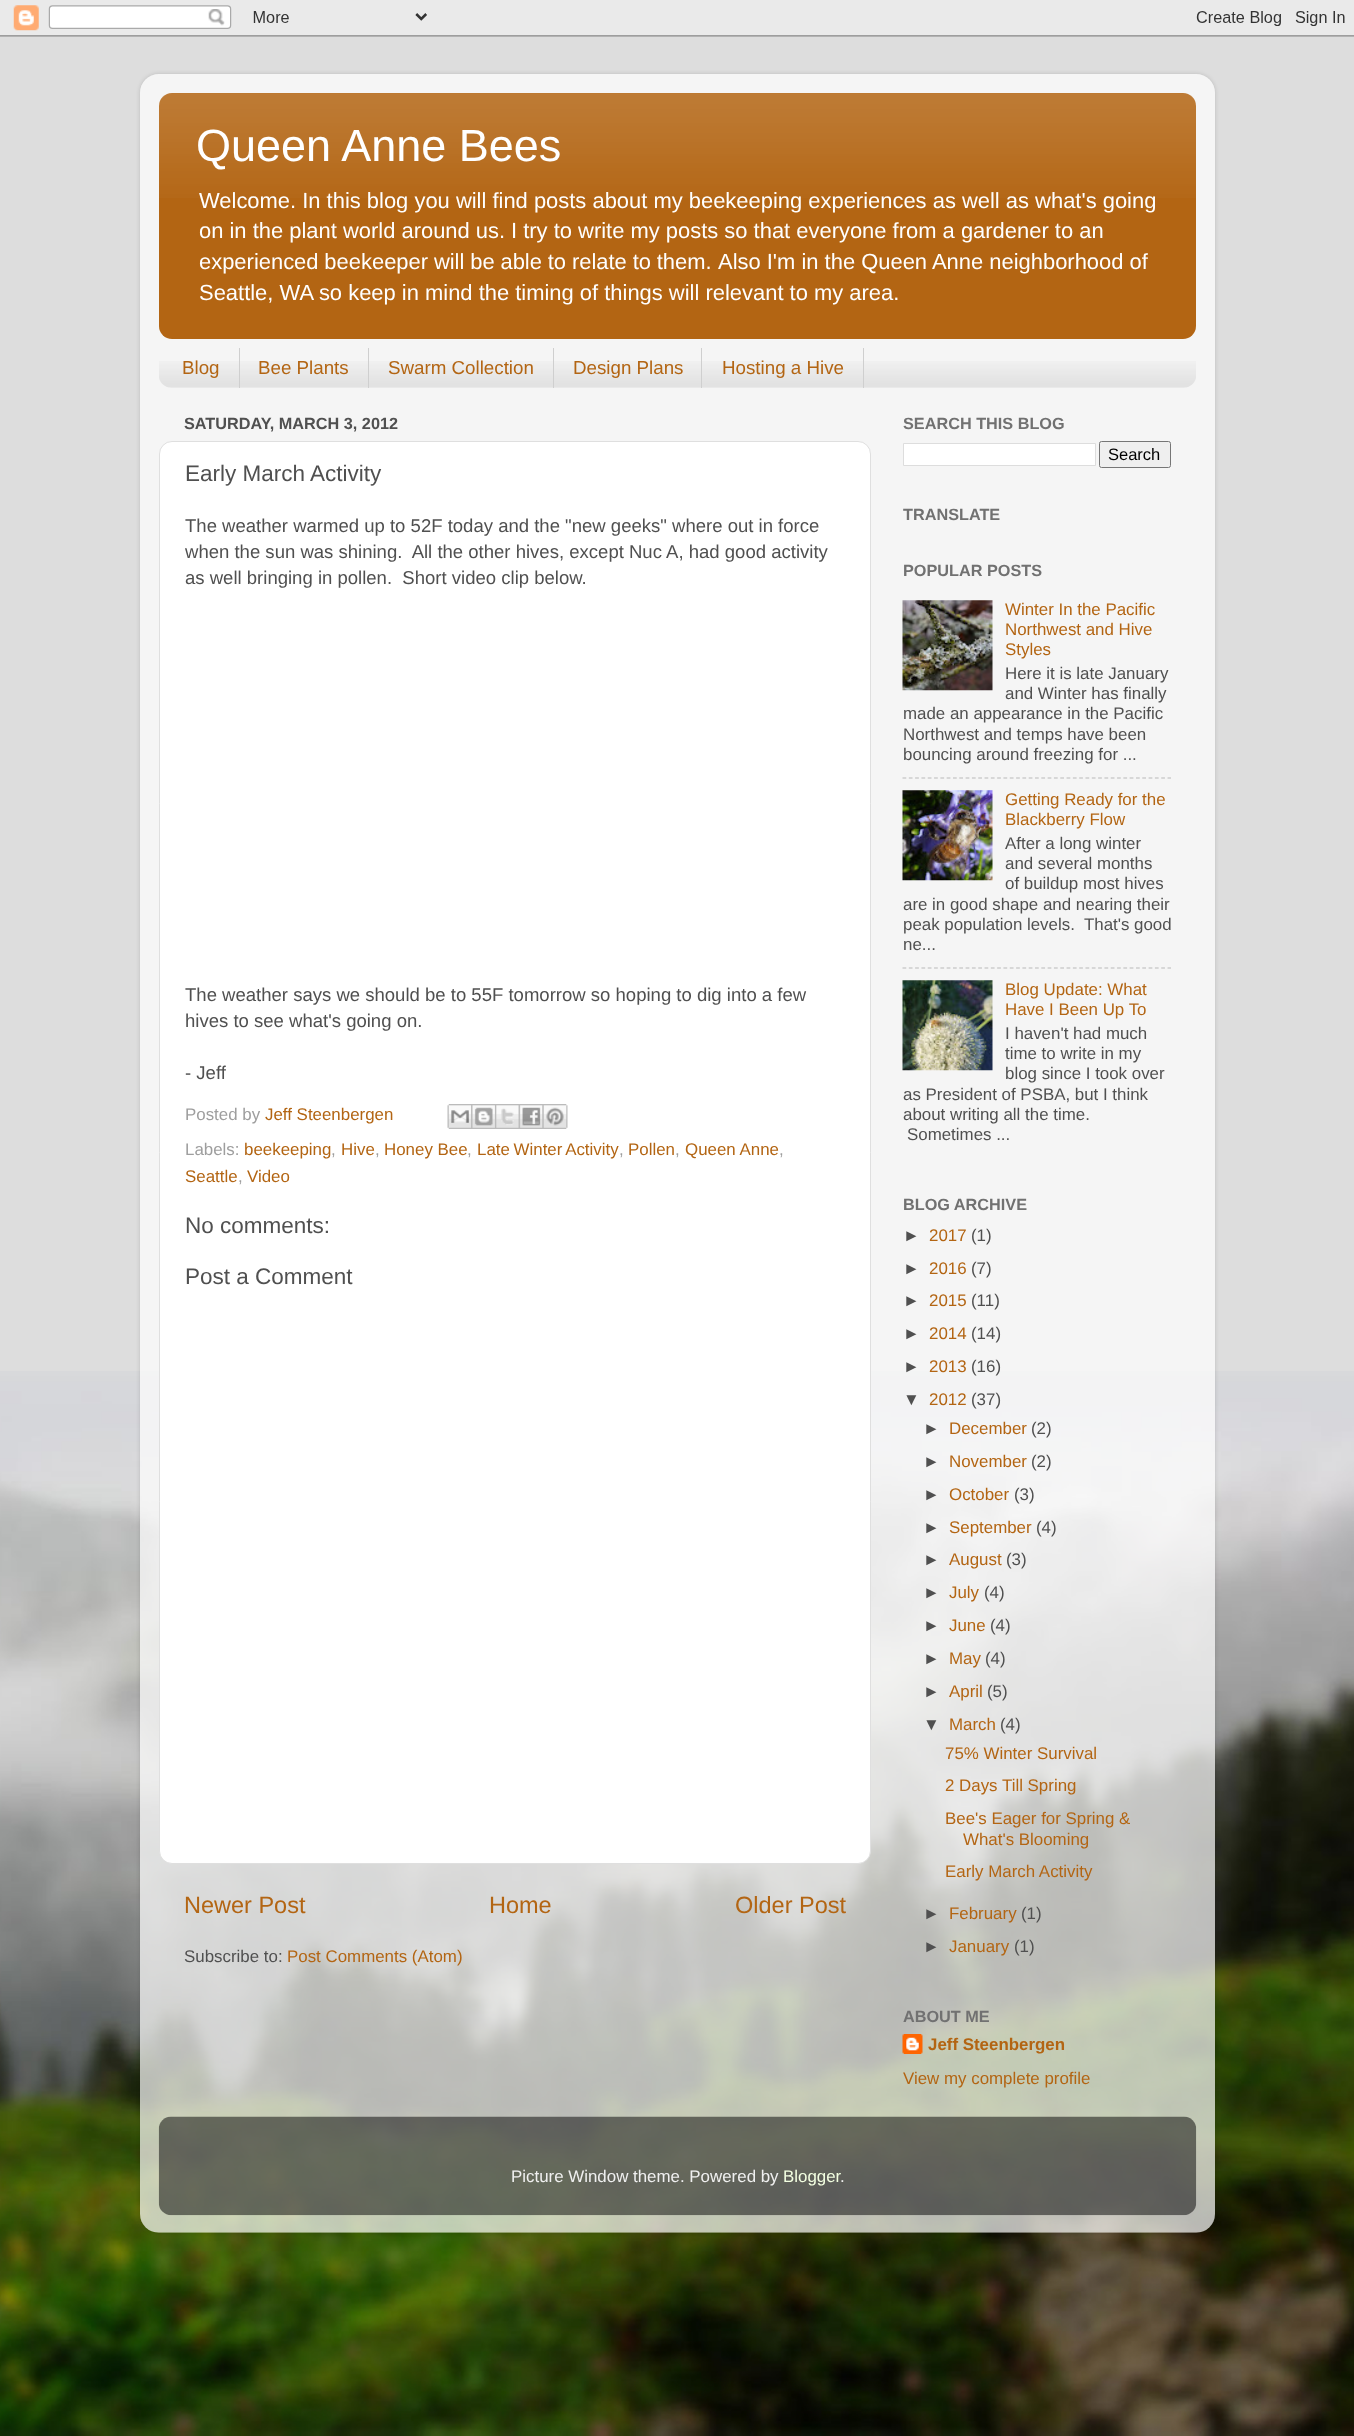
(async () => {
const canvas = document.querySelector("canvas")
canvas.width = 1354
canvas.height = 2436
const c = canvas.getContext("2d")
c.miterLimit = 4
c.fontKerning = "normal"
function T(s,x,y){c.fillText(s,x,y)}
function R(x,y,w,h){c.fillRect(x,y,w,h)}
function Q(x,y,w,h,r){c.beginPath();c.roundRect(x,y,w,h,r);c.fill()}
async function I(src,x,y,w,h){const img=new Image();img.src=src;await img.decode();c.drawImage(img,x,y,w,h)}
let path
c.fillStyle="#ddd"
R(0,0,1354,2436)
await I("1.png",0,1371,1354,1065)
await I("2.png",0,0,1354,37)
c.save()
path = new Path2D("M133 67h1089v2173h-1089zm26 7h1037c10.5 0 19 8.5 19 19v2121c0 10.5-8.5 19-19 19h-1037c-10.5 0-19-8.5-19-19v-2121c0-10.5 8.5-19 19-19z")
c.clip(path,"evenodd")
c.fillStyle="#00000026"
c.filter="blur(2px)"
c.beginPath()
c.roundRect(140,74,1075,2159,19)
c.fill()
c.filter="none"
c.restore()
await I("3.png",140,74,1075,2159)
c.fillStyle="#b36513"
Q(159,93,1037,246,13)
await I("4.png",159,93,1037,105)
c.font="45px Liberation Sans"
c.fillStyle="#fff"
T("Queen Anne Bees",196,161)
c.font="21.95px Liberation Sans"
T("Welcome. In this blog you will find posts about my beekeeping experiences as well as what's going",199,208)
T("on in the plant world around us.",199,238)
T("I try to write my posts so that everyone from a gardener to an",511,238)
c.wordSpacing="-0.25px"
T("experienced beekeeper will be able to relate to them.",199,269)
c.wordSpacing="0px"
T("Also I'm in the Queen Anne neighborhood of",718,269)
T("Seattle, WA so keep in mind the timing of things will relevant to my area.",199,300)
await I("5.png",159,361,1037,27)
c.fillStyle="#cfcfcf"
R(239,348,1,40)
c.font="18.75px Liberation Sans"
c.fillStyle="#b36513"
T("Blog",182,374)
c.fillStyle="#cfcfcf"
R(368,348,1,40)
c.fillStyle="#b36513"
T("Bee Plants",258,374)
c.fillStyle="#cfcfcf"
R(553,348,1,40)
c.fillStyle="#b36513"
T("Swarm Collection",388,374)
c.fillStyle="#cfcfcf"
R(701,348,1,40)
c.fillStyle="#b36513"
T("Design Plans",573,374)
c.fillStyle="#cfcfcf"
R(863,348,1,40)
c.fillStyle="#b36513"
T("Hosting a Hive",722,374)
c.font="bold 16.25px Liberation Sans"
c.fillStyle="#505050"
T("SATURDAY, MARCH 3, 2012",184,429)
c.fillStyle="#fff"
c.beginPath()
c.roundRect(159.5,441.5,711,1422,12.5)
c.fill()
c.strokeStyle="#dfdfdf"
c.stroke()
c.font="22.5px Liberation Sans"
c.fillStyle="#505050"
T("Early March Activity",185,481)
c.font="18.55px Liberation Sans"
T("The weather warmed up to 52F today and the \"new geeks\" where out in force",185,532)
T("when the sun was shining.  All the other hives, except Nuc A, had good activity",185,558)
T("as well bringing in pollen.  Short video clip below.",185,584)
T("The weather says we should be to 55F tomorrow so hoping to dig into a few",185,1001)
T("hives to see what's going on.",185,1027)
T("- Jeff",185,1079)
c.font="16.9px Liberation Sans"
c.fillStyle="#9e9e9e"
T("Posted by",185,1120)
c.fillStyle="#b36513"
T("Jeff Steenbergen",265,1120)
await I("6.png",447,1104,25,25)
await I("7.png",471,1104,24,25)
await I("8.png",495,1104,24,25)
await I("9.png",518,1104,25,25)
await I("10.png",542,1104,26,25)
c.fillStyle="#9e9e9e"
T("Labels:",185,1155)
c.fillStyle="#b36513"
T("beekeeping",244,1155)
c.fillStyle="#9e9e9e"
T(",",331,1155)
c.fillStyle="#b36513"
T("Hive",341,1155)
c.fillStyle="#9e9e9e"
T(",",375,1155)
c.fillStyle="#b36513"
T("Honey Bee",384,1155)
c.fillStyle="#9e9e9e"
T(",",467,1155)
c.wordSpacing="-1px"
c.fillStyle="#b36513"
T("Late Winter Activity",477,1155)
c.wordSpacing="0px"
c.fillStyle="#9e9e9e"
T(",",619,1155)
c.fillStyle="#b36513"
T("Pollen",628,1155)
c.fillStyle="#9e9e9e"
T(",",675,1155)
c.fillStyle="#b36513"
T("Queen Anne",685,1155)
c.fillStyle="#9e9e9e"
T(",",779,1155)
c.fillStyle="#b36513"
T("Seattle",185,1182)
c.fillStyle="#9e9e9e"
T(",",238,1182)
c.fillStyle="#b36513"
T("Video",247,1182)
c.font="22.5px Liberation Sans"
c.fillStyle="#505050"
T("No comments:",185,1233)
T("Post a Comment",185,1284)
c.font="23.5px Liberation Sans"
c.fillStyle="#b36513"
T("Newer Post",184,1913)
T("Home",489,1913)
T("Older Post",735,1913)
c.font="16.9px Liberation Sans"
c.fillStyle="#505050"
T("Subscribe to:",184,1962)
c.fillStyle="#b36513"
T("Post Comments (Atom)",287,1962)
c.font="bold 16.25px Liberation Sans"
c.fillStyle="#717171"
T("SEARCH THIS BLOG",903,429)
c.fillStyle="#fff"
c.beginPath()
c.rect(903.5,443.5,192,22)
c.fill()
c.strokeStyle="#ddd"
c.stroke()
c.fillStyle="#efefef"
c.beginPath()
c.roundRect(1099.5,441.5,71,26,2)
c.fill()
c.strokeStyle="#767676"
c.stroke()
c.font="16.5px Liberation Sans"
c.fillStyle="#000"
T("Search",1108,460)
c.font="bold 16.25px Liberation Sans"
c.fillStyle="#717171"
T("TRANSLATE",903,520)
T("POPULAR POSTS",903,576)
await I("11.png",902,600,91,91)
c.font="16.9px Liberation Sans"
c.fillStyle="#b36513"
T("Winter In the Pacific",1005,615)
T("Northwest and Hive",1005,635)
T("Styles",1005,655)
c.fillStyle="#505050"
T("Here it is late January",1005,679)
T("and Winter has finally",1005,699)
T("made an appearance in the Pacific",903,719)
T("Northwest and temps have been",903,740)
T("bouncing around freezing for ...",903,760)
path = new Path2D("M902.5 778h268.5")
c.strokeStyle="#bababa"
c.lineWidth=1.2
c.setLineDash([3.75,2.56])
c.stroke(path)
await I("12.png",902,790,91,91)
c.fillStyle="#b36513"
T("Getting Ready for the",1005,805)
T("Blackberry Flow",1005,825)
c.fillStyle="#505050"
T("After a long winter",1005,849)
T("and several months",1005,869)
T("of buildup most hives",1005,889)
T("are in good shape and nearing their",903,910)
T("peak population levels.  That's good",903,930)
T("ne...",903,950)
path = new Path2D("M902.5 968h268.5")
c.stroke(path)
await I("13.png",902,980,91,91)
c.fillStyle="#b36513"
T("Blog Update: What",1005,995)
T("Have I Been Up To",1005,1015)
c.fillStyle="#505050"
T("I haven't had much",1005,1039)
T("time to write in my",1005,1059)
T("blog since I took over",1005,1079)
T("as President of PSBA, but I think",903,1100)
T("about writing all the time.",903,1120)
T("Sometimes ...",907,1140)
c.font="bold 16.25px Liberation Sans"
c.fillStyle="#717171"
T("BLOG ARCHIVE",903,1210)
c.font="16.9px Liberation Sans"
c.fillStyle="#505050"
T("►",903,1241)
c.fillStyle="#b36513"
T("2017",929,1241)
c.fillStyle="#505050"
T("(1)",971,1241)
T("►",903,1274)
c.fillStyle="#b36513"
T("2016",929,1274)
c.fillStyle="#505050"
T("(7)",971,1274)
T("►",903,1306)
c.fillStyle="#b36513"
T("2015",929,1306)
c.fillStyle="#505050"
T("(11)",971,1306)
T("►",903,1339)
c.fillStyle="#b36513"
T("2014",929,1339)
c.fillStyle="#505050"
T("(14)",971,1339)
T("►",903,1372)
c.fillStyle="#b36513"
T("2013",929,1372)
c.fillStyle="#505050"
T("(16)",971,1372)
T("▼",903,1405)
c.fillStyle="#b36513"
T("2012",929,1405)
c.fillStyle="#505050"
T("(37)",971,1405)
T("►",923,1434)
c.fillStyle="#b36513"
T("December",949,1434)
c.fillStyle="#505050"
T("(2)",1031,1434)
T("►",923,1467)
c.fillStyle="#b36513"
T("November",949,1467)
c.fillStyle="#505050"
T("(2)",1031,1467)
T("►",923,1500)
c.fillStyle="#b36513"
T("October",949,1500)
c.fillStyle="#505050"
T("(3)",1014,1500)
T("►",923,1533)
c.fillStyle="#b36513"
T("September",949,1533)
c.fillStyle="#505050"
T("(4)",1036,1533)
T("►",923,1565)
c.fillStyle="#b36513"
T("August",949,1565)
c.fillStyle="#505050"
T("(3)",1006,1565)
T("►",923,1598)
c.fillStyle="#b36513"
T("July",949,1598)
c.fillStyle="#505050"
T("(4)",984,1598)
T("►",923,1631)
c.fillStyle="#b36513"
T("June",949,1631)
c.fillStyle="#505050"
T("(4)",990,1631)
T("►",923,1664)
c.fillStyle="#b36513"
T("May",949,1664)
c.fillStyle="#505050"
T("(4)",985,1664)
T("►",923,1697)
c.fillStyle="#b36513"
T("April",949,1697)
c.fillStyle="#505050"
T("(5)",987,1697)
T("▼",923,1730)
c.fillStyle="#b36513"
T("March",949,1730)
c.fillStyle="#505050"
T("(4)",1000,1730)
c.fillStyle="#b36513"
T("75% Winter Survival",945,1759)
T("2 Days Till Spring",945,1791)
T("Bee's Eager for Spring &",945,1824)
T("What's Blooming",963,1845)
T("Early March Activity",945,1877)
c.fillStyle="#505050"
T("►",923,1919)
c.fillStyle="#b36513"
T("February",949,1919)
c.fillStyle="#505050"
T("(1)",1021,1919)
T("►",923,1952)
c.fillStyle="#b36513"
T("January",949,1952)
c.fillStyle="#505050"
T("(1)",1014,1952)
c.font="bold 16.25px Liberation Sans"
c.fillStyle="#717171"
T("ABOUT ME",903,2022)
await I("14.png",902,2034,21,20)
c.font="bold 16.9px Liberation Sans"
c.fillStyle="#b36513"
T("Jeff Steenbergen",928,2050)
c.font="16.9px Liberation Sans"
T("View my complete profile",903,2084)
await I("15.png",158,2116,1039,100)
c.fillStyle="#f0f0f0"
T("Picture Window theme. Powered by",511,2182)
c.fillStyle="#f3ffe1"
T("Blogger",783,2182)
c.fillStyle="#f0f0f0"
T(".",840,2182)
})()
